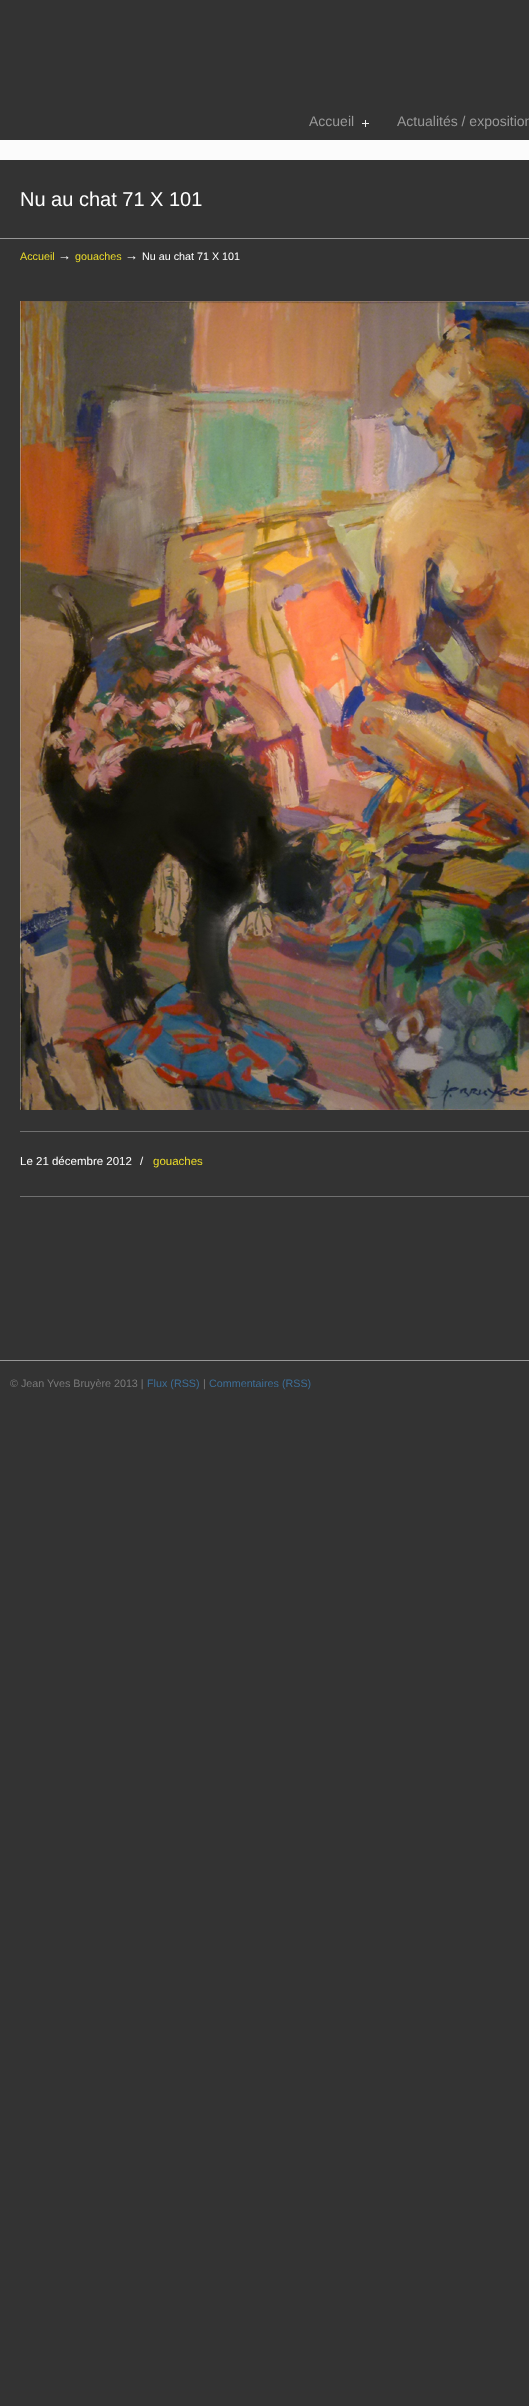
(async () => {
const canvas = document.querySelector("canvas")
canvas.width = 529
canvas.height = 2406
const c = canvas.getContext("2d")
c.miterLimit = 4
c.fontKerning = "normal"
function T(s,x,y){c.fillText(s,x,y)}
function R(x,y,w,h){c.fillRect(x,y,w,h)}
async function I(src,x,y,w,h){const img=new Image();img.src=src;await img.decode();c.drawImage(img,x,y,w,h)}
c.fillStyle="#333"
R(0,0,529,2406)
c.fillStyle="#fbfbfb"
R(0,140,529,20)
c.font="14px Liberation Sans"
c.fillStyle="#999"
T("Accueil",309,126)
await I("1.png",362,120,7,7)
T("Actualités / exposition",397,126)
c.font="20px Liberation Sans"
c.fillStyle="#fff"
T("Nu au chat 71 X 101",20,206)
c.fillStyle="#979797"
R(0,238,529,1)
c.font="10.75px Liberation Sans"
c.fillStyle="#ebdb2a"
T("Accueil",20,260)
c.font="13px Liberation Sans"
c.fillStyle="#fff"
T("→",58,260)
c.font="10.75px Liberation Sans"
c.fillStyle="#ebdb2a"
T("gouaches",75,260)
c.font="13px Liberation Sans"
c.fillStyle="#fff"
T("→",125,260)
c.font="10.75px Liberation Sans"
T("Nu au chat 71 X 101",142,260)
await I("2.png",20,301,509,809)
c.fillStyle="#707070"
R(20,1131,509,1)
c.font="11.5px Liberation Sans"
c.fillStyle="#fff"
T("Le 21 décembre 2012",20,1165)
T("/",140,1165)
c.fillStyle="#ebdb2a"
T("gouaches",153,1165)
c.fillStyle="#707070"
R(20,1196,509,1)
c.fillStyle="#979797"
R(0,1360,529,1)
c.font="10.75px Liberation Sans"
c.fillStyle="#797979"
T("© Jean Yves Bruyère 2013 |",10,1387)
c.fillStyle="#3d6e97"
T("Flux (RSS)",147,1387)
c.fillStyle="#797979"
T("|",203,1387)
c.fillStyle="#3d6e97"
T("Commentaires (RSS)",209,1387)
})()
